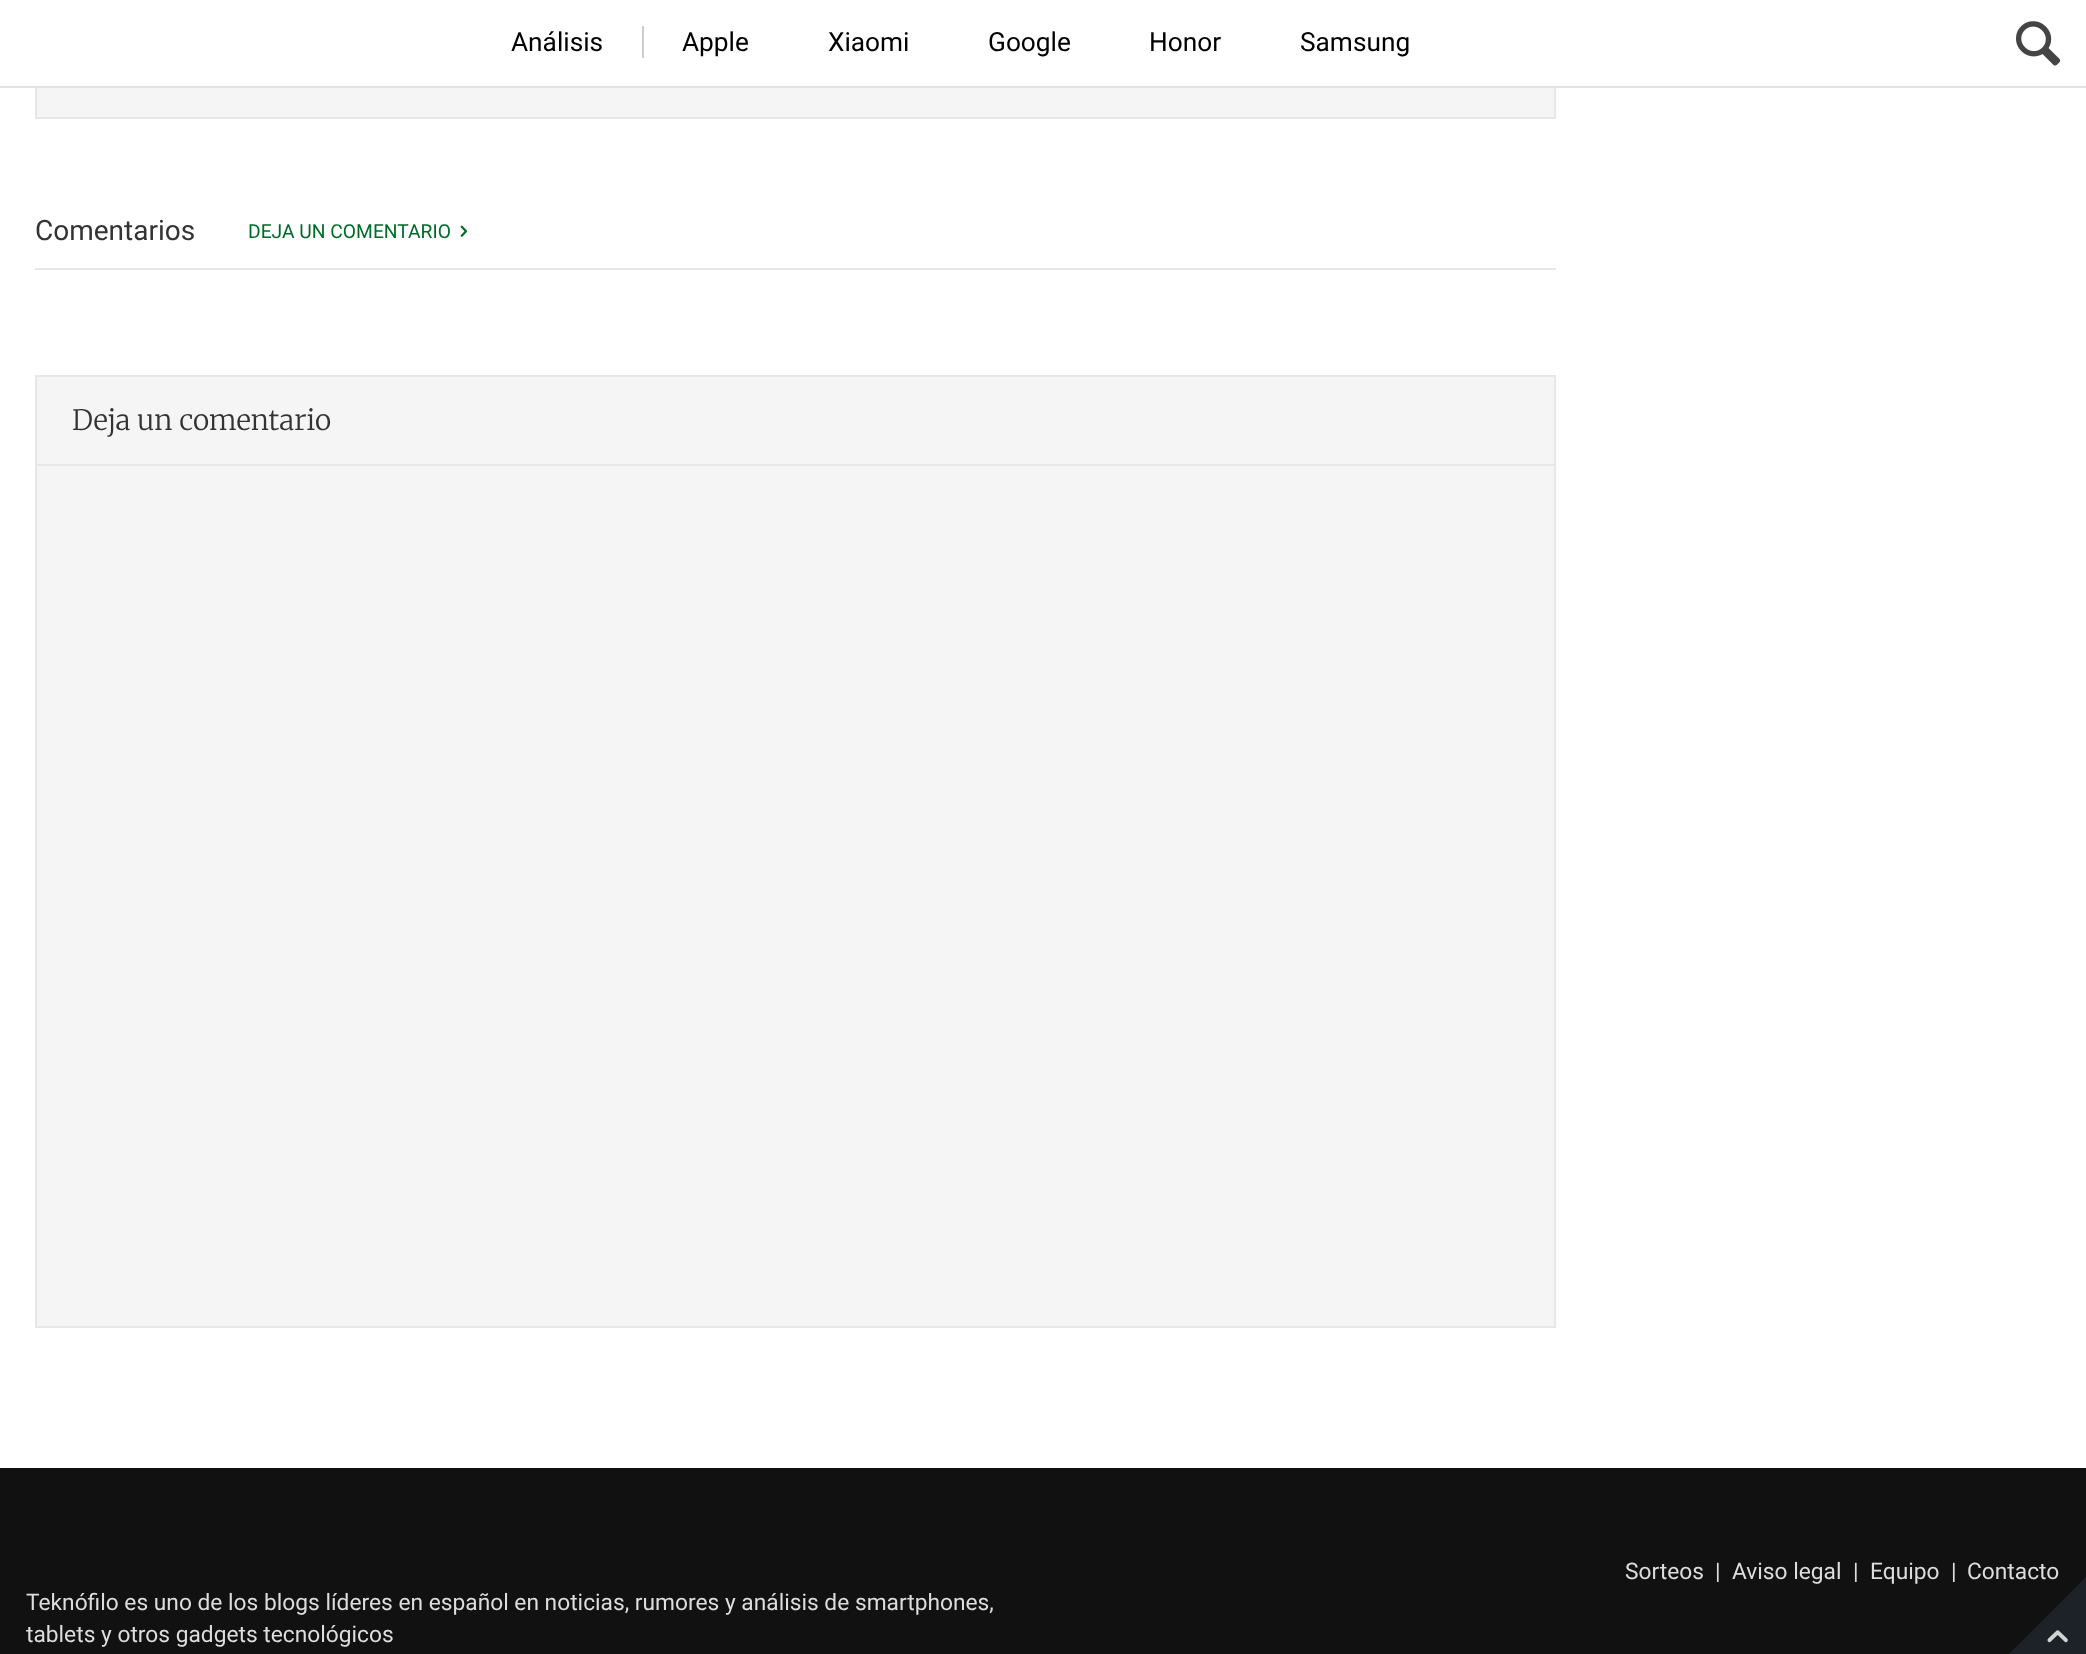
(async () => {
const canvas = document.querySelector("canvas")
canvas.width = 2086
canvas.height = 1654
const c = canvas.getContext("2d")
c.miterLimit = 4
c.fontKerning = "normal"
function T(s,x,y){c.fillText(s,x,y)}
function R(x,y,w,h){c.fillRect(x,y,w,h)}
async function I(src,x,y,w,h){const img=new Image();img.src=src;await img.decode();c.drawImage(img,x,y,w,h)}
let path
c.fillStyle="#fff"
R(0,0,2086,1654)
c.fillStyle="#f5f5f5"
R(37,88,1517,29)
c.strokeStyle="#e7e7e7"
c.lineWidth=2
c.strokeRect(36,-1,1519,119)
c.fillStyle="#fff"
R(35,0,1521,86)
c.fillStyle="#e2e2e2"
R(0,86,2086,2)
c.font="26.25px Roboto"
c.fillStyle="#000"
T("Análisis",511,51)
c.fillStyle="#ccc"
R(642,26,2,32)
c.fillStyle="#000"
T("Apple",682,51)
T("Xiaomi",828,51)
T("Google",988,51)
T("Honor",1149,51)
T("Samsung",1300,51)
await I("1.png",2016,21,45,45)
c.fillStyle="#e7e7e7"
R(35,268,1521,2)
c.font="28px Roboto"
c.fillStyle="#333"
T("Comentarios",35,240)
c.font="19.25px Roboto"
c.fillStyle="#006b27"
T("DEJA UN COMENTARIO",248,238)
await I("2.png",460,225,8,12)
c.fillStyle="#f5f5f5"
c.beginPath()
c.rect(36,376,1519,951)
c.fill()
c.stroke()
c.fillStyle="#e7e7e7"
R(37,464,1517,2)
c.font="300 28px Merriweather"
c.fillStyle="#333"
T("Deja un comentario",72,430)
c.fillStyle="#111"
R(0,1468,2086,186)
c.font="22.75px Roboto"
c.fillStyle="#ddd"
T("Sorteos",1625,1579)
T("|",1715,1579)
T("Aviso legal",1732,1579)
T("|",1853,1579)
T("Equipo",1870,1579)
T("|",1951,1579)
T("Contacto",1967,1579)
T("Teknófilo es uno de los blogs líderes en español en noticias, rumores y análisis de smartphones,",26,1610)
T("tablets y otros gadgets tecnológicos",26,1642)
c.fillStyle="#1c2228"
path = new Path2D("M2086 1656h-79l79-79z")
c.fill(path)
await I("3.png",2047,1630,21,13)
})()
